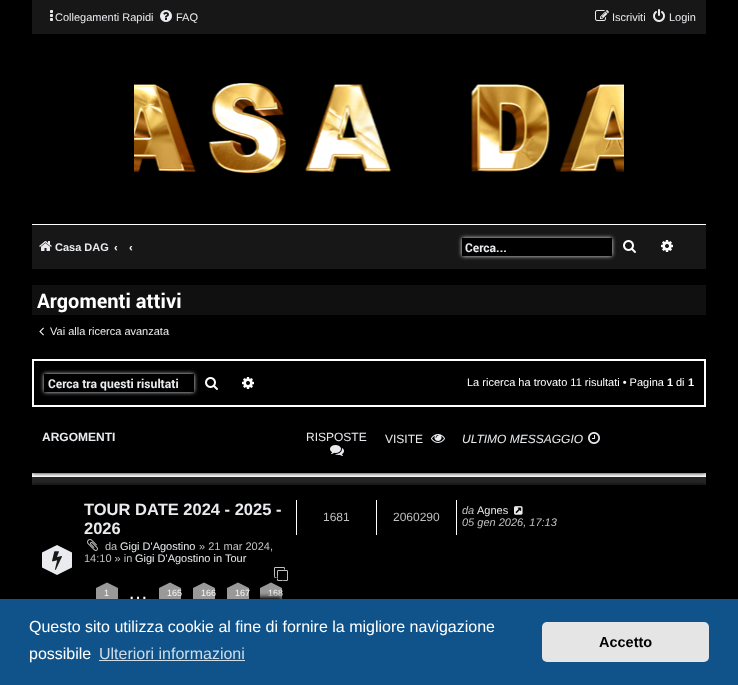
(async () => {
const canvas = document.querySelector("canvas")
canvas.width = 738
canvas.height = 685
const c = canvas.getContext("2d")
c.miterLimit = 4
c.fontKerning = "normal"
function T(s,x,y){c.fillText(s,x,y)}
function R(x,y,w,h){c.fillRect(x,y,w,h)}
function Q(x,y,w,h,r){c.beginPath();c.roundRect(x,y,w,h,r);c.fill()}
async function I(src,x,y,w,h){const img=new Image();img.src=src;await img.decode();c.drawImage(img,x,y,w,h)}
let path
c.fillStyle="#000"
R(0,0,738,685)
c.fillStyle="#171717"
R(32,0,674,34)
await I("1.png",50,10,3,11)
c.font="11px Liberation Sans"
c.fillStyle="#e9ebee"
T("Collegamenti Rapidi",55,21)
await I("2.png",160,10,12,12)
T("FAQ",176,21)
await I("3.png",595,10,14,11)
T("Iscriviti",612,21)
await I("4.png",653,9,12,13)
T("Login",669,21)
await I("5.png",134,83,490,90)
c.fillStyle="#171717"
R(32,225,674,44)
c.fillStyle="#fff"
R(32,224,674,1)
await I("6.png",39,241,13,10)
c.font="bold 11px Liberation Sans"
c.fillStyle="#e9ebee"
T("Casa DAG",55,251)
c.fillStyle="#fff"
T("‹",114,251)
T("‹",129,251)
c.fillStyle="#e9ebee"
c.filter="blur(2px)"
c.beginPath()
c.rect(462,238,150,18)
c.fill()
c.filter="none"
c.fillStyle="#000"
R(462,238,150,18)
c.font="bold 12.1px Roboto"
c.fillStyle="#e9ebee"
T("Cerca...",465,252)
await I("7.png",623,240,13,13)
await I("8.png",661,240,12,12)
c.fillStyle="#101010"
R(32,285,674,30)
c.font="bold 20px Roboto"
c.fillStyle="#fff"
T("Argomenti attivi",37,308)
await I("9.png",39,327,5,9)
c.font="11px Liberation Sans"
c.fillStyle="#e9ebee"
T("Vai alla ricerca avanzata",50,335)
c.strokeStyle="#fff"
c.lineWidth=2
c.strokeRect(33,360,672,46)
c.save()
path = new Path2D("M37 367h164v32h-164zm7 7h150v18h-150z")
c.clip(path,"evenodd")
c.filter="blur(2px)"
c.beginPath()
c.rect(44,374,150,18)
c.fill()
c.filter="none"
c.restore()
c.font="bold 12.1px Roboto"
T("Cerca tra questi risultati",48,388)
await I("10.png",205,377,13,13)
await I("11.png",242,377,12,12)
c.font="11px Liberation Sans"
c.fillStyle="#fff"
T("La ricerca ha trovato 11 risultati • Pagina",467,386)
c.font="bold 11px Liberation Sans"
T("1",667,386)
c.font="11px Liberation Sans"
T("di",676,386)
c.font="bold 11px Liberation Sans"
T("1",688,386)
R(32,473,674,4)
c.fillStyle="#262626"
R(32,477,674,8)
c.save()
path = new Path2D("M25 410h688v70h-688zm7 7h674v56h-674z")
c.clip(path,"evenodd")
c.fillStyle="#000"
c.filter="blur(2px)"
c.beginPath()
c.rect(32,417,674,56)
c.fill()
c.filter="none"
c.restore()
c.font="bold 12px Liberation Sans"
c.fillStyle="#e9ebee"
T("ARGOMENTI",42,441)
c.font="12px Liberation Sans"
T("RISPOSTE",306,441)
await I("12.png",330,445,14,11)
T("VISITE",385,443)
await I("13.png",431,434,14,9)
c.font="italic 12px Liberation Sans"
T("ULTIMO MESSAGGIO",462,443)
await I("14.png",588,432,12,12)
c.save()
path = new Path2D("M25 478h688v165h-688zm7 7h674v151h-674z")
c.clip(path,"evenodd")
c.fillStyle="#000"
c.filter="blur(2px)"
c.beginPath()
c.rect(32,485,674,151)
c.fill()
c.filter="none"
c.restore()
c.font="bold 16.5px Liberation Sans"
T("TOUR DATE 2024 - 2025 -",84,515)
T("2026",84,534)
await I("15.png",87,539,11,12)
c.font="11px Liberation Sans"
c.fillStyle="#c0c0c0"
T("da",105,550)
c.fillStyle="#e9ebee"
T("Gigi D'Agostino",120,550)
c.fillStyle="#c0c0c0"
T("» 21 mar 2024,",199,550)
T("14:10 » in",84,562)
c.fillStyle="#e9ebee"
T("Gigi D'Agostino in Tour",135,562)
await I("16.png",274,567,14,14)
c.font="9px Liberation Sans"
T("1",104,596)
c.fillStyle="#ffffff99"
path = new Path2D("M96 588l11-5.5l11 5.5v11l-11 5.5l-11-5.5z")
c.fill(path)
c.fillStyle="#e9ebee"
T("165",167,596)
c.fillStyle="#ffffff99"
path = new Path2D("M159 588l11-5.5l11 5.5v11l-11 5.5l-11-5.5z")
c.fill(path)
c.fillStyle="#e9ebee"
T("166",201,596)
c.fillStyle="#ffffff99"
path = new Path2D("M193 588l11-5.5l11 5.5v11l-11 5.5l-11-5.5z")
c.fill(path)
c.fillStyle="#e9ebee"
T("167",235,596)
c.fillStyle="#ffffff99"
path = new Path2D("M227 588l11-5.5l11 5.5v11l-11 5.5l-11-5.5z")
c.fill(path)
c.save()
path = new Path2D("M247 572h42v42h-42zm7 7h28v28h-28z")
c.clip(path,"evenodd")
c.fillStyle="#000"
c.filter="blur(2px)"
c.beginPath()
c.rect(254,579,28,28)
c.fill()
c.filter="none"
c.restore()
c.fillStyle="#e9ebee"
T("168",268,596)
c.fillStyle="#ffffff99"
path = new Path2D("M260 588l11-5.5l11 5.5v11l-11 5.5l-11-5.5z")
c.fill(path)
c.font="20px Liberation Sans"
c.fillStyle="#fff"
T("…",128,599)
c.fillStyle="#000"
c.filter="blur(2px)"
c.beginPath()
c.rect(254,597,28,29)
c.fill()
c.filter="none"
c.fillStyle="#fff"
R(296,500,1,35)
c.font="12px Liberation Sans"
c.fillStyle="#c0c0c0"
T("1681",323,521)
c.fillStyle="#fff"
R(376,500,1,35)
c.fillStyle="#c0c0c0"
T("2060290",393,521)
c.fillStyle="#fff"
R(456,500,1,35)
c.font="italic 11px Liberation Sans"
c.fillStyle="#c0c0c0"
T("da",462,514)
c.font="11px Liberation Sans"
c.fillStyle="#e9ebee"
T("Agnes",477,514)
await I("17.png",514,506,9,9)
c.font="italic 11px Liberation Sans"
c.fillStyle="#c0c0c0"
T("05 gen 2026, 17:13",462,526)
c.fillStyle="#e9ebee"
path = new Path2D("M42 552.5l15-7.5l15 7.5v15l-15 7.5l-15-7.5z")
c.fill(path)
await I("18.png",52,551,10,19)
c.fillStyle="#0f538a"
R(0,599,738,86)
c.font="16px Liberation Sans"
c.fillStyle="#fff"
T("Questo sito utilizza cookie al fine di fornire la migliore navigazione",29,632)
T("possibile",29,659)
c.fillStyle="#cfdde8"
T("Ulteriori informazioni",99,659)
R(99,660,146,1)
c.fillStyle="#e5e5e5"
Q(542,622,167,40,5)
c.font="bold 14.5px Liberation Sans"
c.fillStyle="#000"
T("Accetto",599,647)
})()
